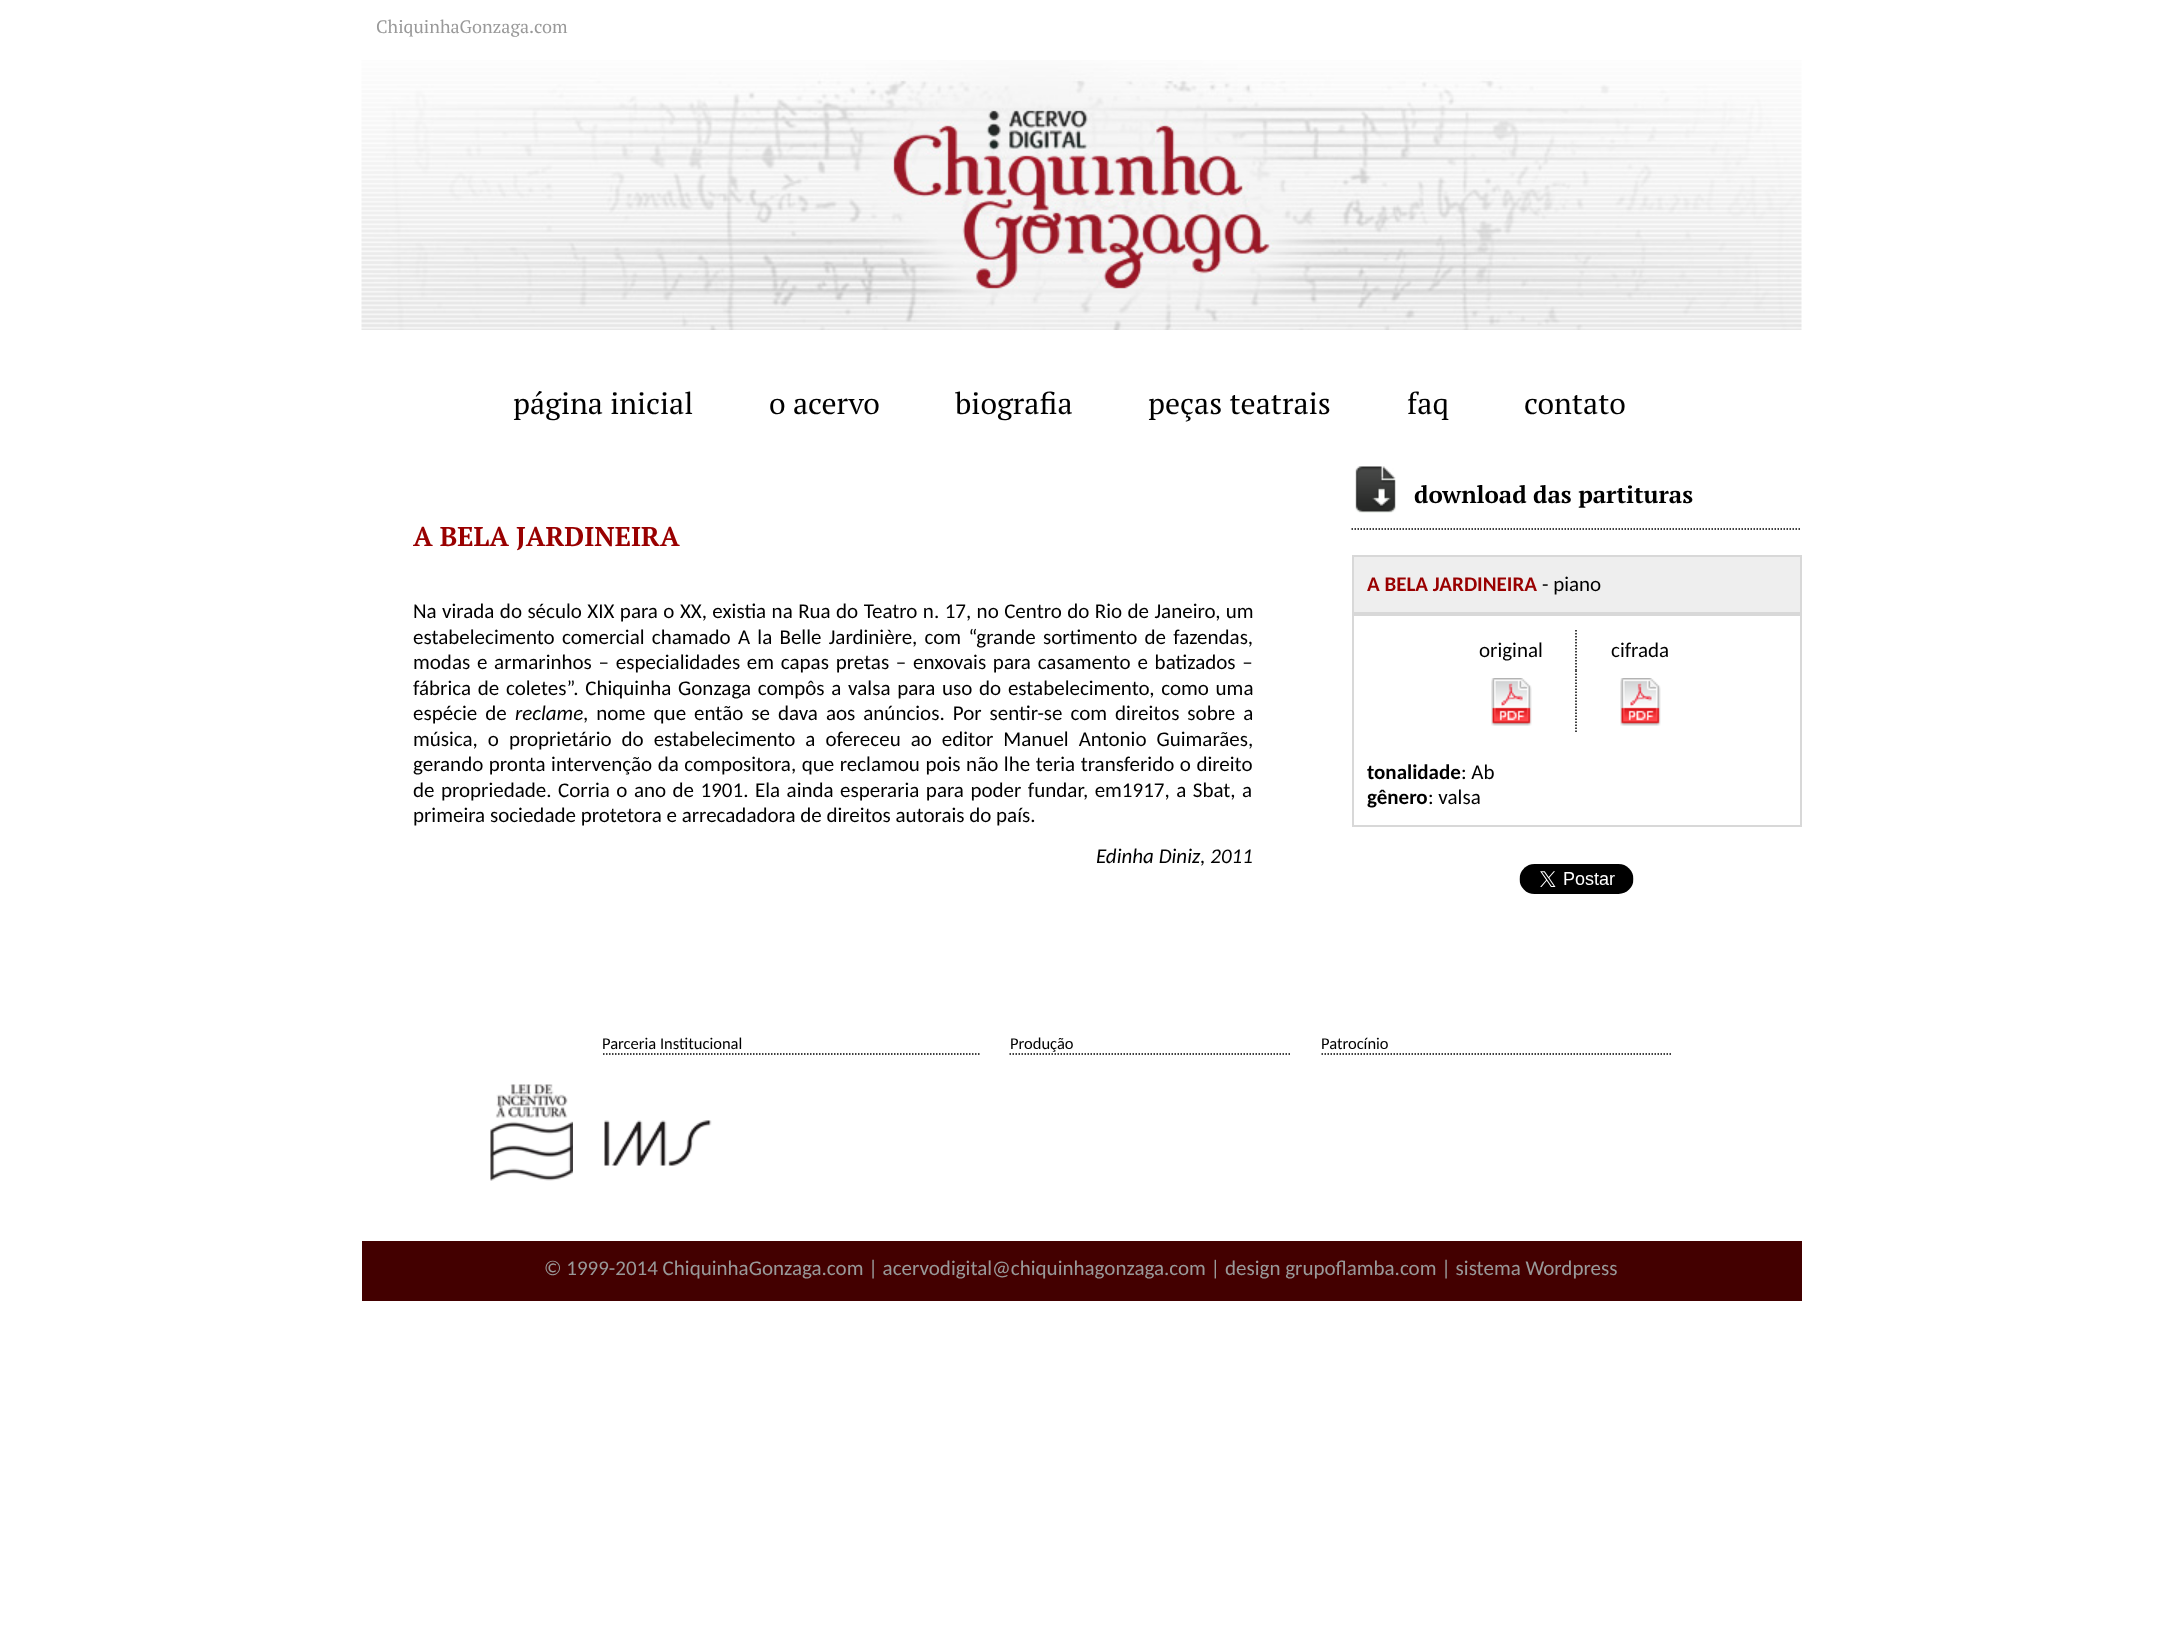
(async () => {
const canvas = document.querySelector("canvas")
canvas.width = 2161
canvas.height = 1635
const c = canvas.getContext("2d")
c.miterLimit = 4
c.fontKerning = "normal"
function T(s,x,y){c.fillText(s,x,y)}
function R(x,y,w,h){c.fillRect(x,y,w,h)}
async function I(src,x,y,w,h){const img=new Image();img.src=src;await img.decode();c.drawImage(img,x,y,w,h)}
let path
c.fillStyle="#fff"
R(0,0,2161,1635)
c.font="18px PT Serif"
c.fillStyle="#999"
T("ChiquinhaGonzaga.com",376,33)
await I("1.png",361,60,1441,270)
c.font="30px PT Serif"
c.fillStyle="#000"
T("página inicial",513,414)
T("o acervo",769,414)
T("biografia",955,414)
T("peças teatrais",1148,414)
T("faq",1407,414)
T("contato",1524,414)
c.font="bold 27px PT Serif"
c.fillStyle="#900"
T("A BELA JARDINEIRA",413,546)
c.wordSpacing="0.7px"
c.font="21px Carlito"
c.fillStyle="#000"
T("Na virada do século XIX para o XX, existia na Rua do Teatro n. 17, no Centro do Rio de Janeiro, um",413,618)
c.wordSpacing="2.5px"
T("estabelecimento comercial chamado A la Belle Jardinière, com “grande sortimento de fazendas,",413,644)
c.wordSpacing="2px"
T("modas e armarinhos – especialidades em capas pretas – enxovais para casamento e batizados –",413,669)
T("fábrica de coletes”. Chiquinha Gonzaga compôs a valsa para uso do estabelecimento, como uma",413,695)
c.wordSpacing="3.25px"
T("espécie de",413,720)
c.wordSpacing="0px"
c.font="italic 21px Carlito"
T("reclame",515,720)
c.wordSpacing="3.25px"
c.font="21px Carlito"
T(", nome que então se dava aos anúncios. Por sentir-se com direitos sobre a",583,720)
c.wordSpacing="5.25px"
T("música, o proprietário do estabelecimento a ofereceu ao editor Manuel Antonio Guimarães,",413,746)
c.wordSpacing="0.8px"
T("gerando pronta intervenção da compositora, que reclamou pois não lhe teria transferido o direito",413,771)
c.wordSpacing="1.75px"
T("de propriedade. Corria o ano de 1901. Ela ainda esperaria para poder fundar, em1917, a Sbat, a",413,797)
c.wordSpacing="0px"
T("primeira sociedade protetora e arrecadadora de direitos autorais do país.",413,822)
c.font="italic 21px Carlito"
T("Edinha Diniz, 2011",1096,863)
path = new Path2D("M1351.5 529h450")
c.strokeStyle="#000"
c.lineWidth=1.5
c.setLineDash([1.5,1.5])
c.stroke(path)
await I("2.png",1355,466,41,47)
c.font="bold 24px PT Serif"
T("download das partituras",1414,503)
c.fillStyle="#eee"
c.beginPath()
c.rect(1353,556,448,57)
c.fill()
c.strokeStyle="#d8d8d8"
c.lineWidth=2
c.setLineDash([])
c.stroke()
c.font="bold 21px Carlito"
c.fillStyle="#900"
T("A BELA JARDINEIRA",1367,591)
c.font="21px Carlito"
c.fillStyle="#000"
T("- piano",1542,591)
c.strokeRect(1353,615,448,211)
path = new Path2D("M1576 630v40.5")
c.strokeStyle="#000"
c.lineWidth=1.5
c.setLineDash([1.5,1.5])
c.stroke(path)
T("original",1479,657)
T("cifrada",1611,657)
path = new Path2D("M1576 670.5v63")
c.stroke(path)
await I("3.png",1491,678,41,48)
await I("4.png",1620,678,41,48)
c.font="bold 21px Carlito"
T("tonalidade",1367,779)
c.font="21px Carlito"
T(": Ab",1461,779)
c.font="bold 21px Carlito"
T("gênero",1367,804)
c.font="21px Carlito"
T(": valsa",1428,804)
await I("5.png",1519,864,115,30)
path = new Path2D("M603 1054h376.5")
c.stroke(path)
c.font="16.5px Carlito"
T("Parceria Institucional",602,1049)
path = new Path2D("M1009.5 1054h282")
c.stroke(path)
T("Produção",1010,1049)
path = new Path2D("M1321.5 1054h349.5")
c.stroke(path)
T("Patrocínio",1321,1049)
await I("6.png",490,1084,83,97)
await I("7.png",604,1120,108,46)
c.fillStyle="#430000"
R(362,1241,1440,60)
c.font="21px Carlito"
c.fillStyle="#999"
T("© 1999-2014 ChiquinhaGonzaga.com | acervodigital@chiquinhagonzaga.com | design grupoflamba.com | sistema Wordpress",544,1275)
})()
